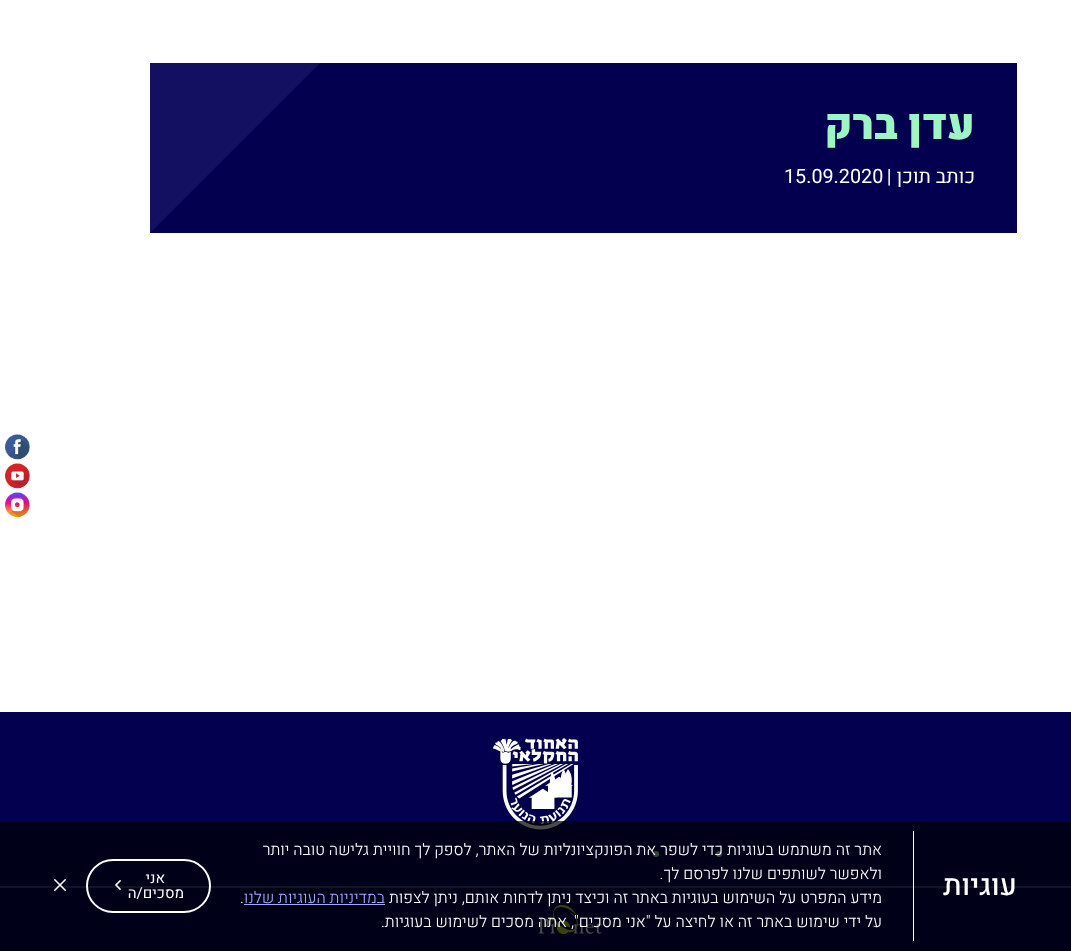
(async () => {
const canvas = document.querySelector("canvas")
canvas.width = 1071
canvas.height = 951
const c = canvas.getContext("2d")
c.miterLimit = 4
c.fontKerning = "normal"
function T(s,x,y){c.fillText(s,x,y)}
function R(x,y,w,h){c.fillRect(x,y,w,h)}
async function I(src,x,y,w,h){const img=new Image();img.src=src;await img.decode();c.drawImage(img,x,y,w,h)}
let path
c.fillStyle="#fff"
R(0,0,1071,951)
c.fillStyle="#030050"
R(150,63,867,170)
c.direction="rtl"
c.font="900 42.5px Heebo"
c.fillStyle="#9ef5c4"
T("עדן ברק",975,139)
c.font="19.75px Heebo"
c.fillStyle="#fff"
T("כותב תוכן |",975,183)
c.direction="ltr"
T("15.09.2020",784,183)
c.fillStyle="#131061"
path = new Path2D("M150 63h170l-170 170z")
c.fill(path)
await I("1.png",5,434,25,26)
await I("2.png",5,463,25,26)
await I("3.png",5,492,25,26)
c.fillStyle="#030050"
R(0,712,1071,239)
await I("4.png",493,738,86,95)
c.fillStyle="#9ef5c4"
c.beginPath()
c.arc(719,854,3,0,7)
c.fill()
c.beginPath()
c.arc(656,854,3,0,7)
c.fill()
c.fillStyle="#324a73"
R(0,886,1071,2)
await I("5.png",538,904,64,31)
c.fillStyle="#000000b3"
R(0,821,1071,130)
c.direction="rtl"
c.font="500 29px Heebo"
c.fillStyle="#fff"
T("עוגיות",1017,895)
R(913,831,1,110)
c.font="300 16px Heebo"
T("אתר זה משתמש בעוגיות כדי לשפר את הפונקציונליות של האתר, לספק לך חוויית גלישה טובה יותר",882,855)
T("ולאפשר לשותפים שלנו לפרסם לך.",882,879)
T("מידע המפרט על השימוש בעוגיות באתר זה וכיצד ניתן לדחות אותם, ניתן לצפות",882,903)
c.fillStyle="#9fa9ff"
T("במדיניות העוגיות שלנו",385,903)
R(244,904,141,1)
c.direction="ltr"
c.fillStyle="#fff"
T(".",240,903)
c.direction="rtl"
T("על ידי שימוש באתר זה או לחיצה על \"אני מסכים\", אתה מסכים לשימוש בעוגיות.",882,927)
c.beginPath()
c.roundRect(87,860,123,52,26)
c.strokeStyle="#fff"
c.lineWidth=2
c.stroke()
c.font="15px Heebo"
T("אני",165,883)
T("מסכים/ה",184,898)
await I("6.png",115,880,6,10)
await I("7.png",54,879,12,12)
})()
